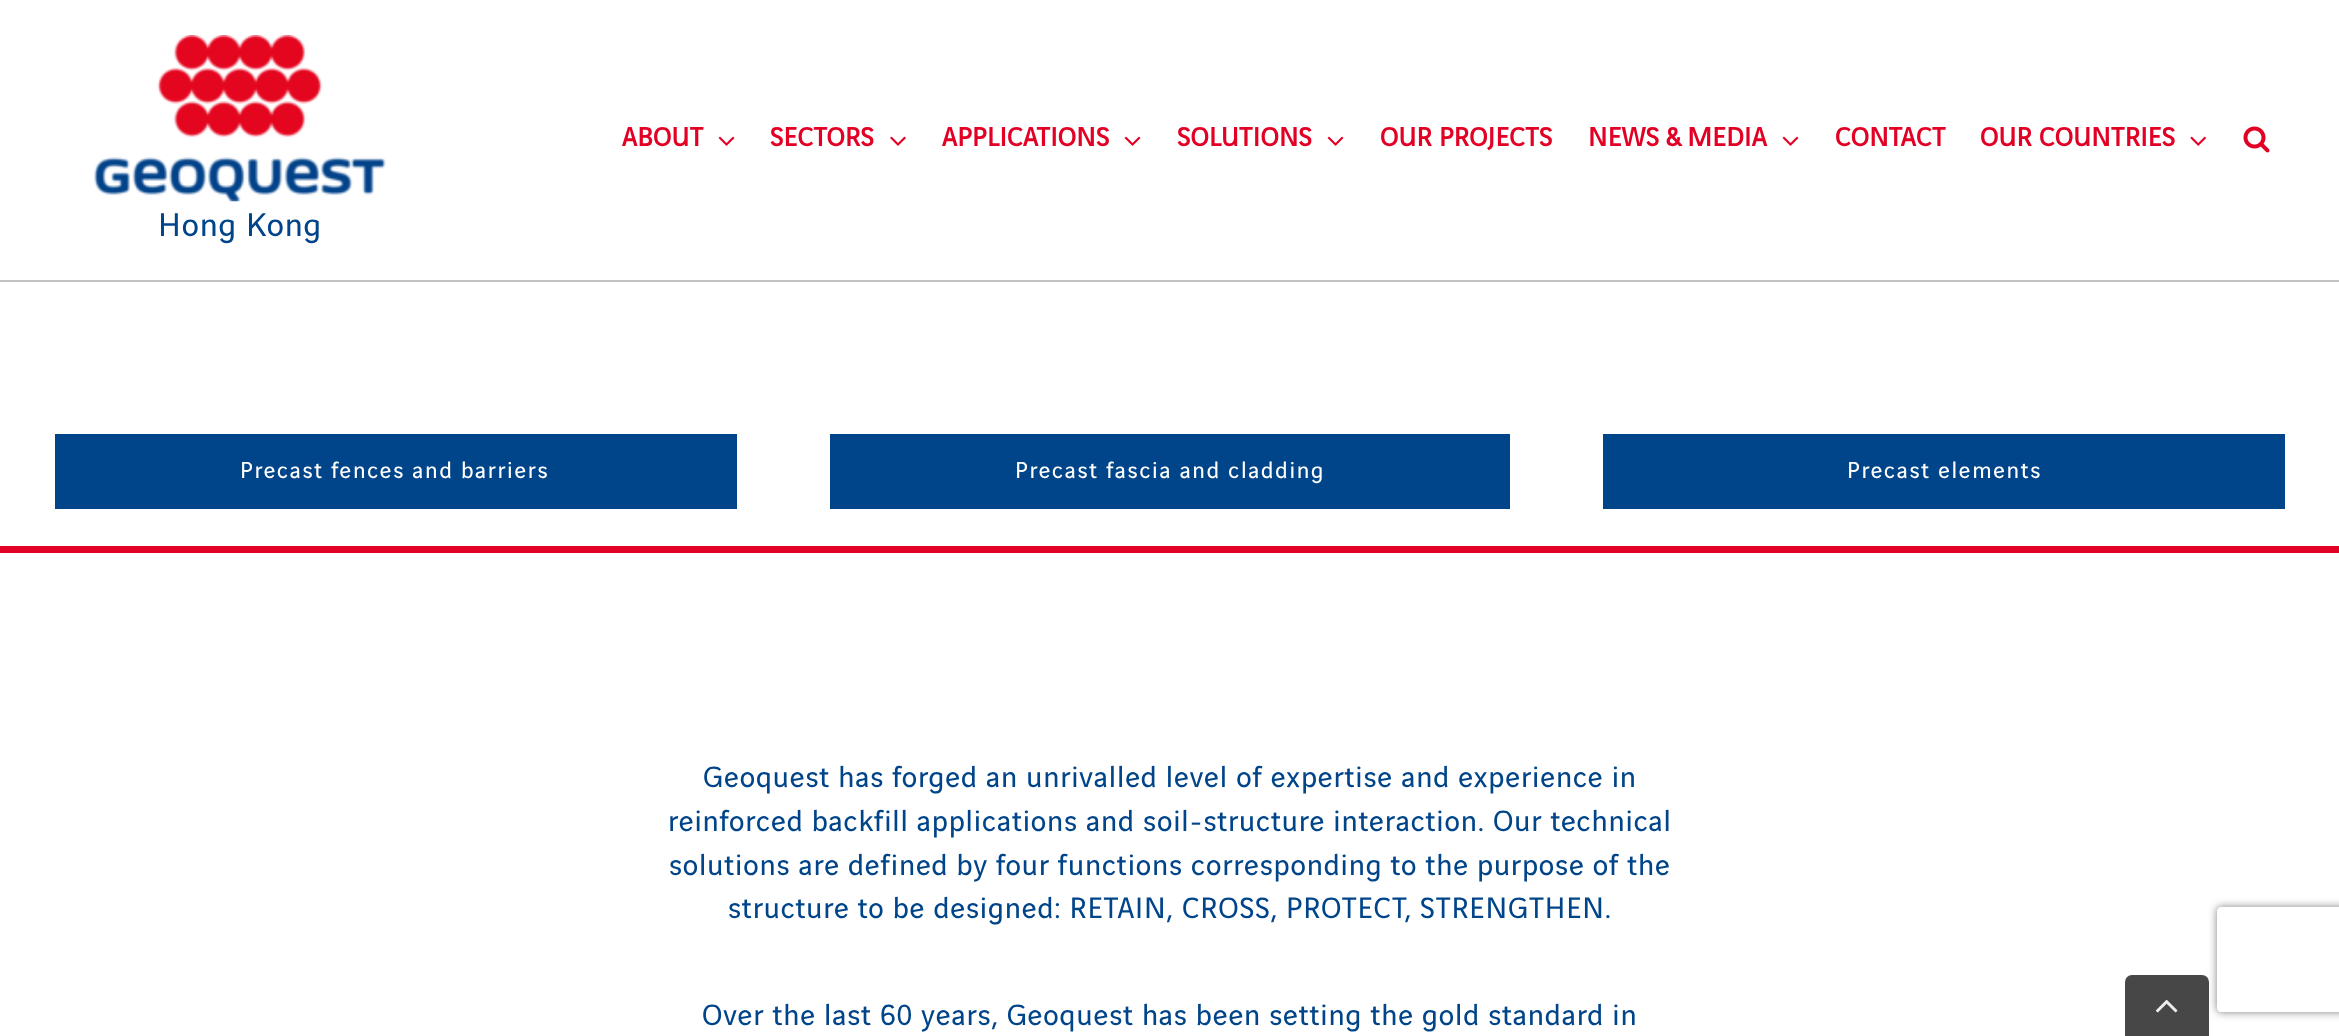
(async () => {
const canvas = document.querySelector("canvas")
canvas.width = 2339
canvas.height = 1036
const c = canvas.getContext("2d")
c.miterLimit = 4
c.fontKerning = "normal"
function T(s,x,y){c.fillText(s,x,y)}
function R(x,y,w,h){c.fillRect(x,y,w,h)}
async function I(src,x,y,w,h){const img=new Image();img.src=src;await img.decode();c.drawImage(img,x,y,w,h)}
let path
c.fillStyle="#fff"
R(0,0,2339,1036)
c.fillStyle="#c3c3c3"
R(0,280,2339,2)
c.letterSpacing="0.4px"
c.font="bold 28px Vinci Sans"
c.fillStyle="#e20025"
T("ABOUT",622,146)
await I("1.png",718,136,17,10)
T("SECTORS",770,146)
await I("2.png",890,136,16,10)
T("APPLICATIONS",942,146)
await I("1.png",1124,136,17,10)
T("SOLUTIONS",1177,146)
await I("1.png",1327,136,17,10)
T("OUR PROJECTS",1380,146)
T("NEWS & MEDIA",1588,146)
await I("1.png",1782,136,17,10)
T("CONTACT",1835,146)
T("OUR COUNTRIES",1980,146)
await I("3.png",2190,136,16,10)
await I("4.png",2243,126,27,27)
await I("5.png",94,35,292,167)
c.letterSpacing="0.88px"
c.font="35px Vinci Sans"
c.fillStyle="#004489"
T("Hong Kong",158,236)
R(55,434,682,75)
c.letterSpacing="1.75px"
c.font="24.5px Vinci Sans"
c.fillStyle="#fff"
T("Precast fences and barriers",240,478)
c.fillStyle="#004489"
R(830,434,680,75)
c.fillStyle="#fff"
T("Precast fascia and cladding",1015,478)
c.fillStyle="#004489"
R(1603,434,682,75)
c.fillStyle="#fff"
T("Precast elements",1847,478)
c.fillStyle="#e20025"
R(0,546,2339,7)
c.letterSpacing="0.88px"
c.font="31.5px Vinci Sans"
c.fillStyle="#004489"
T("Geoquest has forged an unrivalled level of expertise and experience in",703,787)
T("reinforced backfill applications and soil-structure interaction. Our technical",668,831)
T("solutions are defined by four functions corresponding to the purpose of the",669,875)
T("structure to be designed: RETAIN, CROSS, PROTECT, STRENGTHEN.",728,918)
T("Over the last 60 years, Geoquest has been setting the gold standard in",702,1025)
c.save()
path = new Path2D("M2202 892h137v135h-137zm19 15h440c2 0 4 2 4 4v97c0 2-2 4-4 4h-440c-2 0-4-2-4-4v-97c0-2 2-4 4-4z")
c.clip(path,"evenodd")
c.fillStyle="#808080"
c.filter="blur(4.5px)"
c.beginPath()
c.roundRect(2217,907,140,105,4)
c.fill()
c.filter="none"
c.restore()
c.fillStyle="#333333e6"
c.beginPath()
c.roundRect(2125,975,84,61,[7,7,0,0])
c.fill()
await I("6.png",2156,999,22,14)
})()
